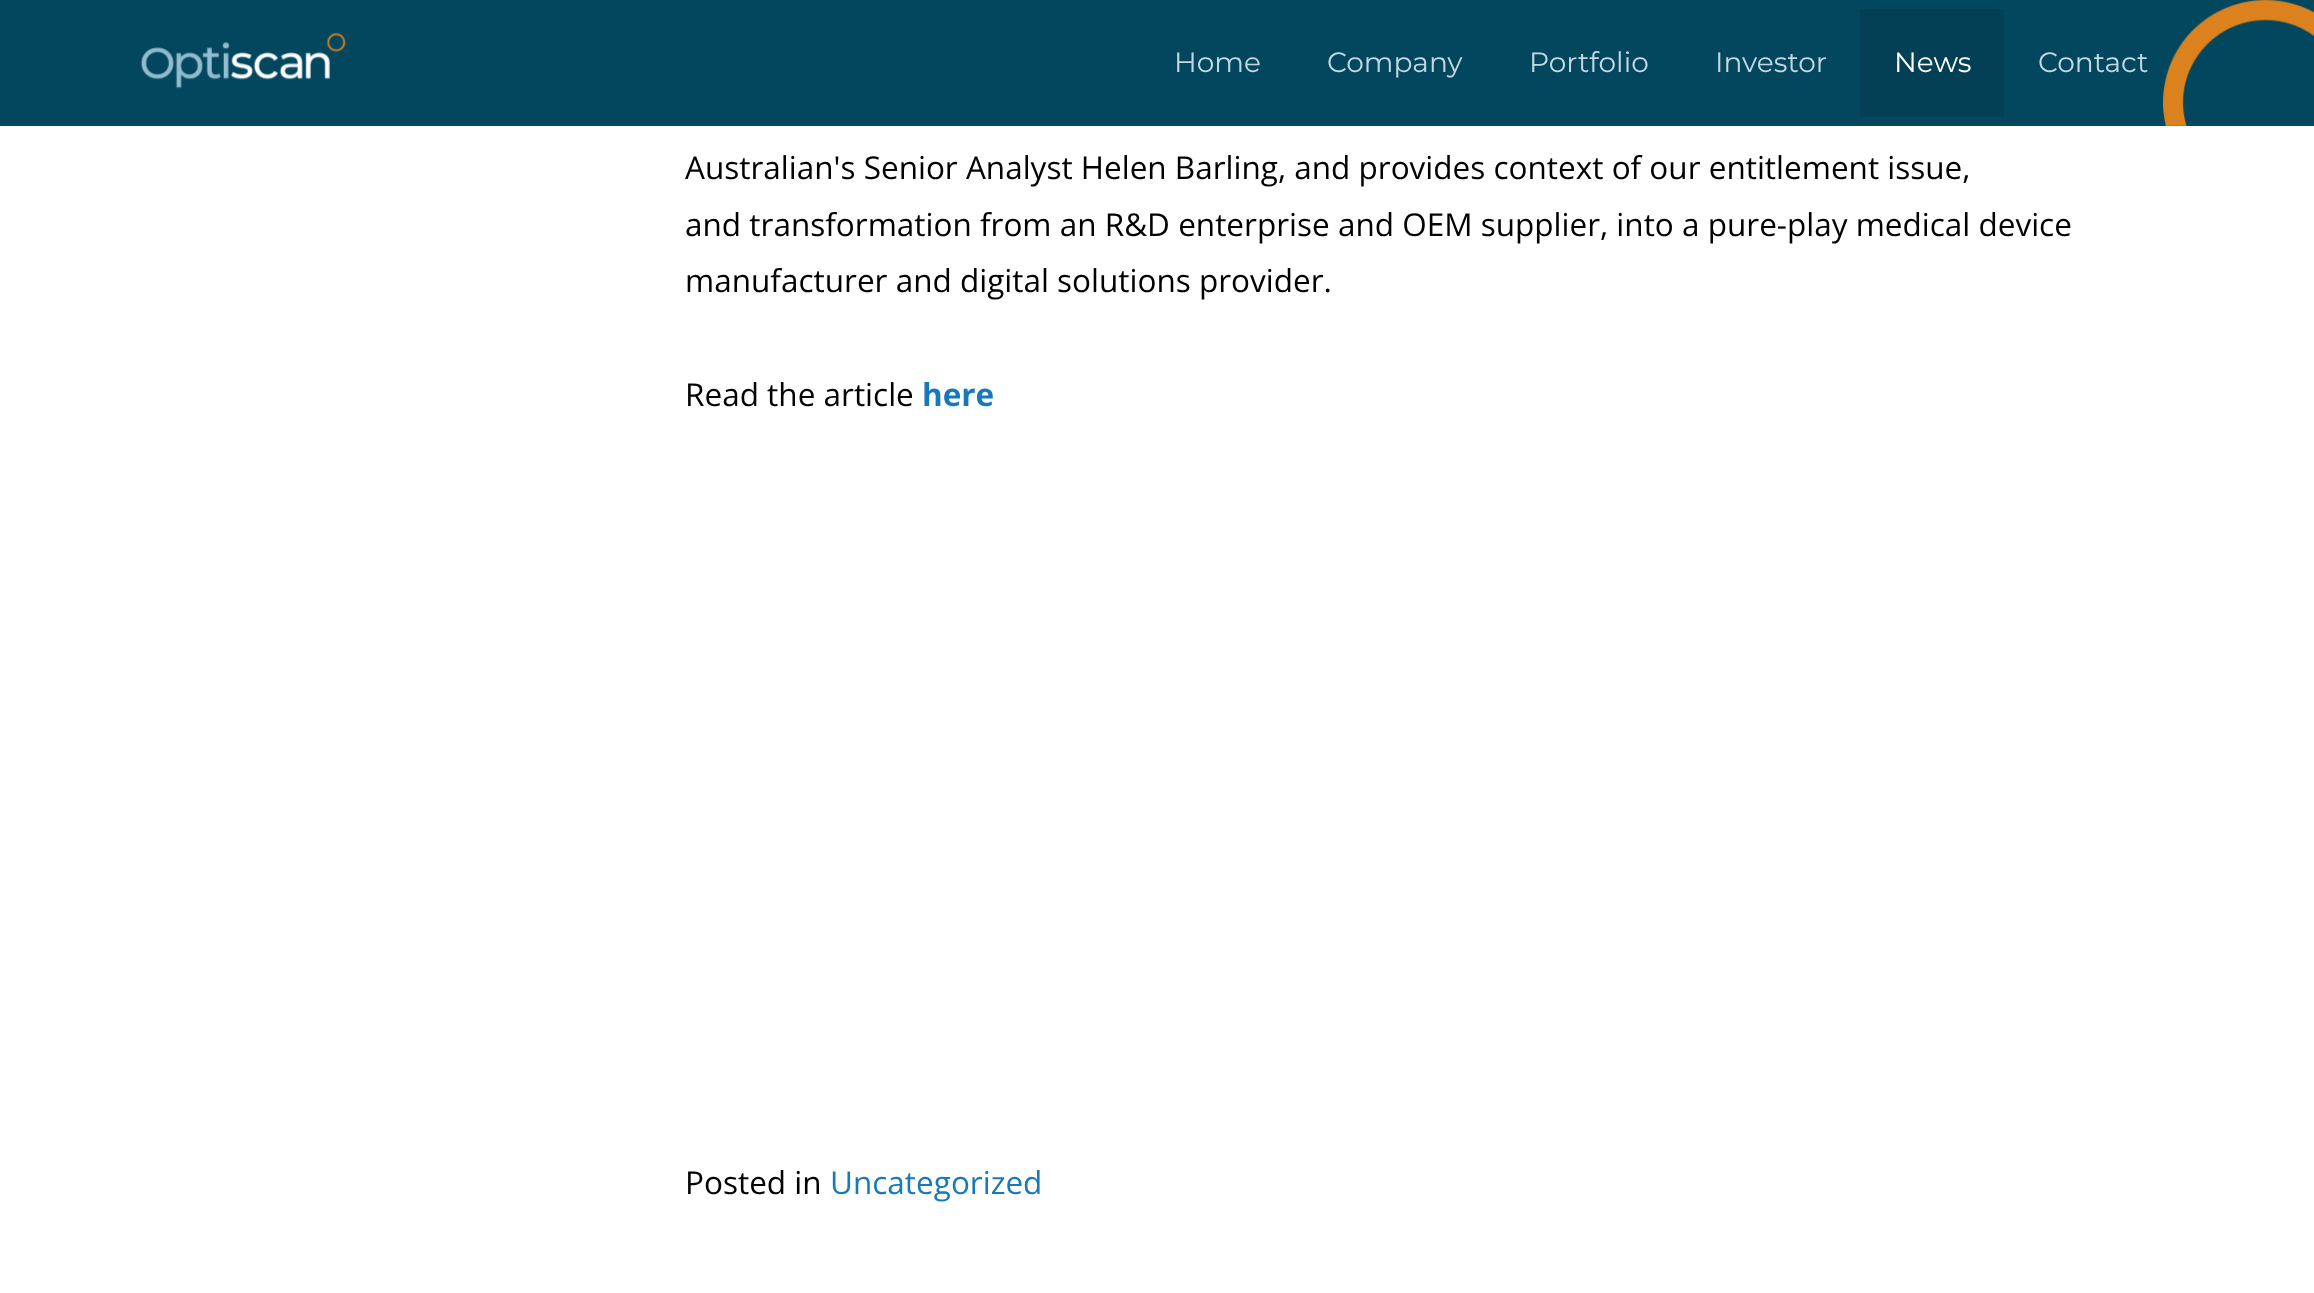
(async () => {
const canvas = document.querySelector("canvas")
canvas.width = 2314
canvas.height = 1293
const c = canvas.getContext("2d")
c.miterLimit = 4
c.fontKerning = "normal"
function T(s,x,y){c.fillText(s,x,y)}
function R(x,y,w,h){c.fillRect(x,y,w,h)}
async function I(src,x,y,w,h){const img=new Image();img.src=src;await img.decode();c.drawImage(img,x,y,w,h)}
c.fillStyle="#fff"
R(0,0,2314,1293)
c.fillStyle="#03475f"
R(0,0,2314,126)
await I("1.png",140,32,206,57)
c.font="28px Montserrat"
c.fillStyle="#c3d8e2"
T("Home",1174,72)
T("Company",1327,72)
T("Portfolio",1529,72)
T("Investor",1715,72)
c.fillStyle="#034056"
R(1860,9,144,108)
c.fillStyle="#fff"
T("News",1894,72)
c.fillStyle="#c3d8e2"
T("Contact",2038,72)
await I("2.png",2163,0,151,126)
c.font="31.5px Open Sans"
c.fillStyle="#000"
T("Australian's Senior Analyst Helen Barling, and provides context of our entitlement issue,",685,179)
T("and transformation from an R&D enterprise and OEM supplier, into a pure-play medical device",685,236)
T("manufacturer and digital solutions provider.",685,292)
T("Read the article",685,406)
c.font="bold 31.5px Open Sans"
c.fillStyle="#1779ba"
T("here",922,406)
c.font="31.5px Open Sans"
c.fillStyle="#000"
T("Posted in",685,1194)
c.fillStyle="#1779ba"
T("Uncategorized",830,1194)
})()
